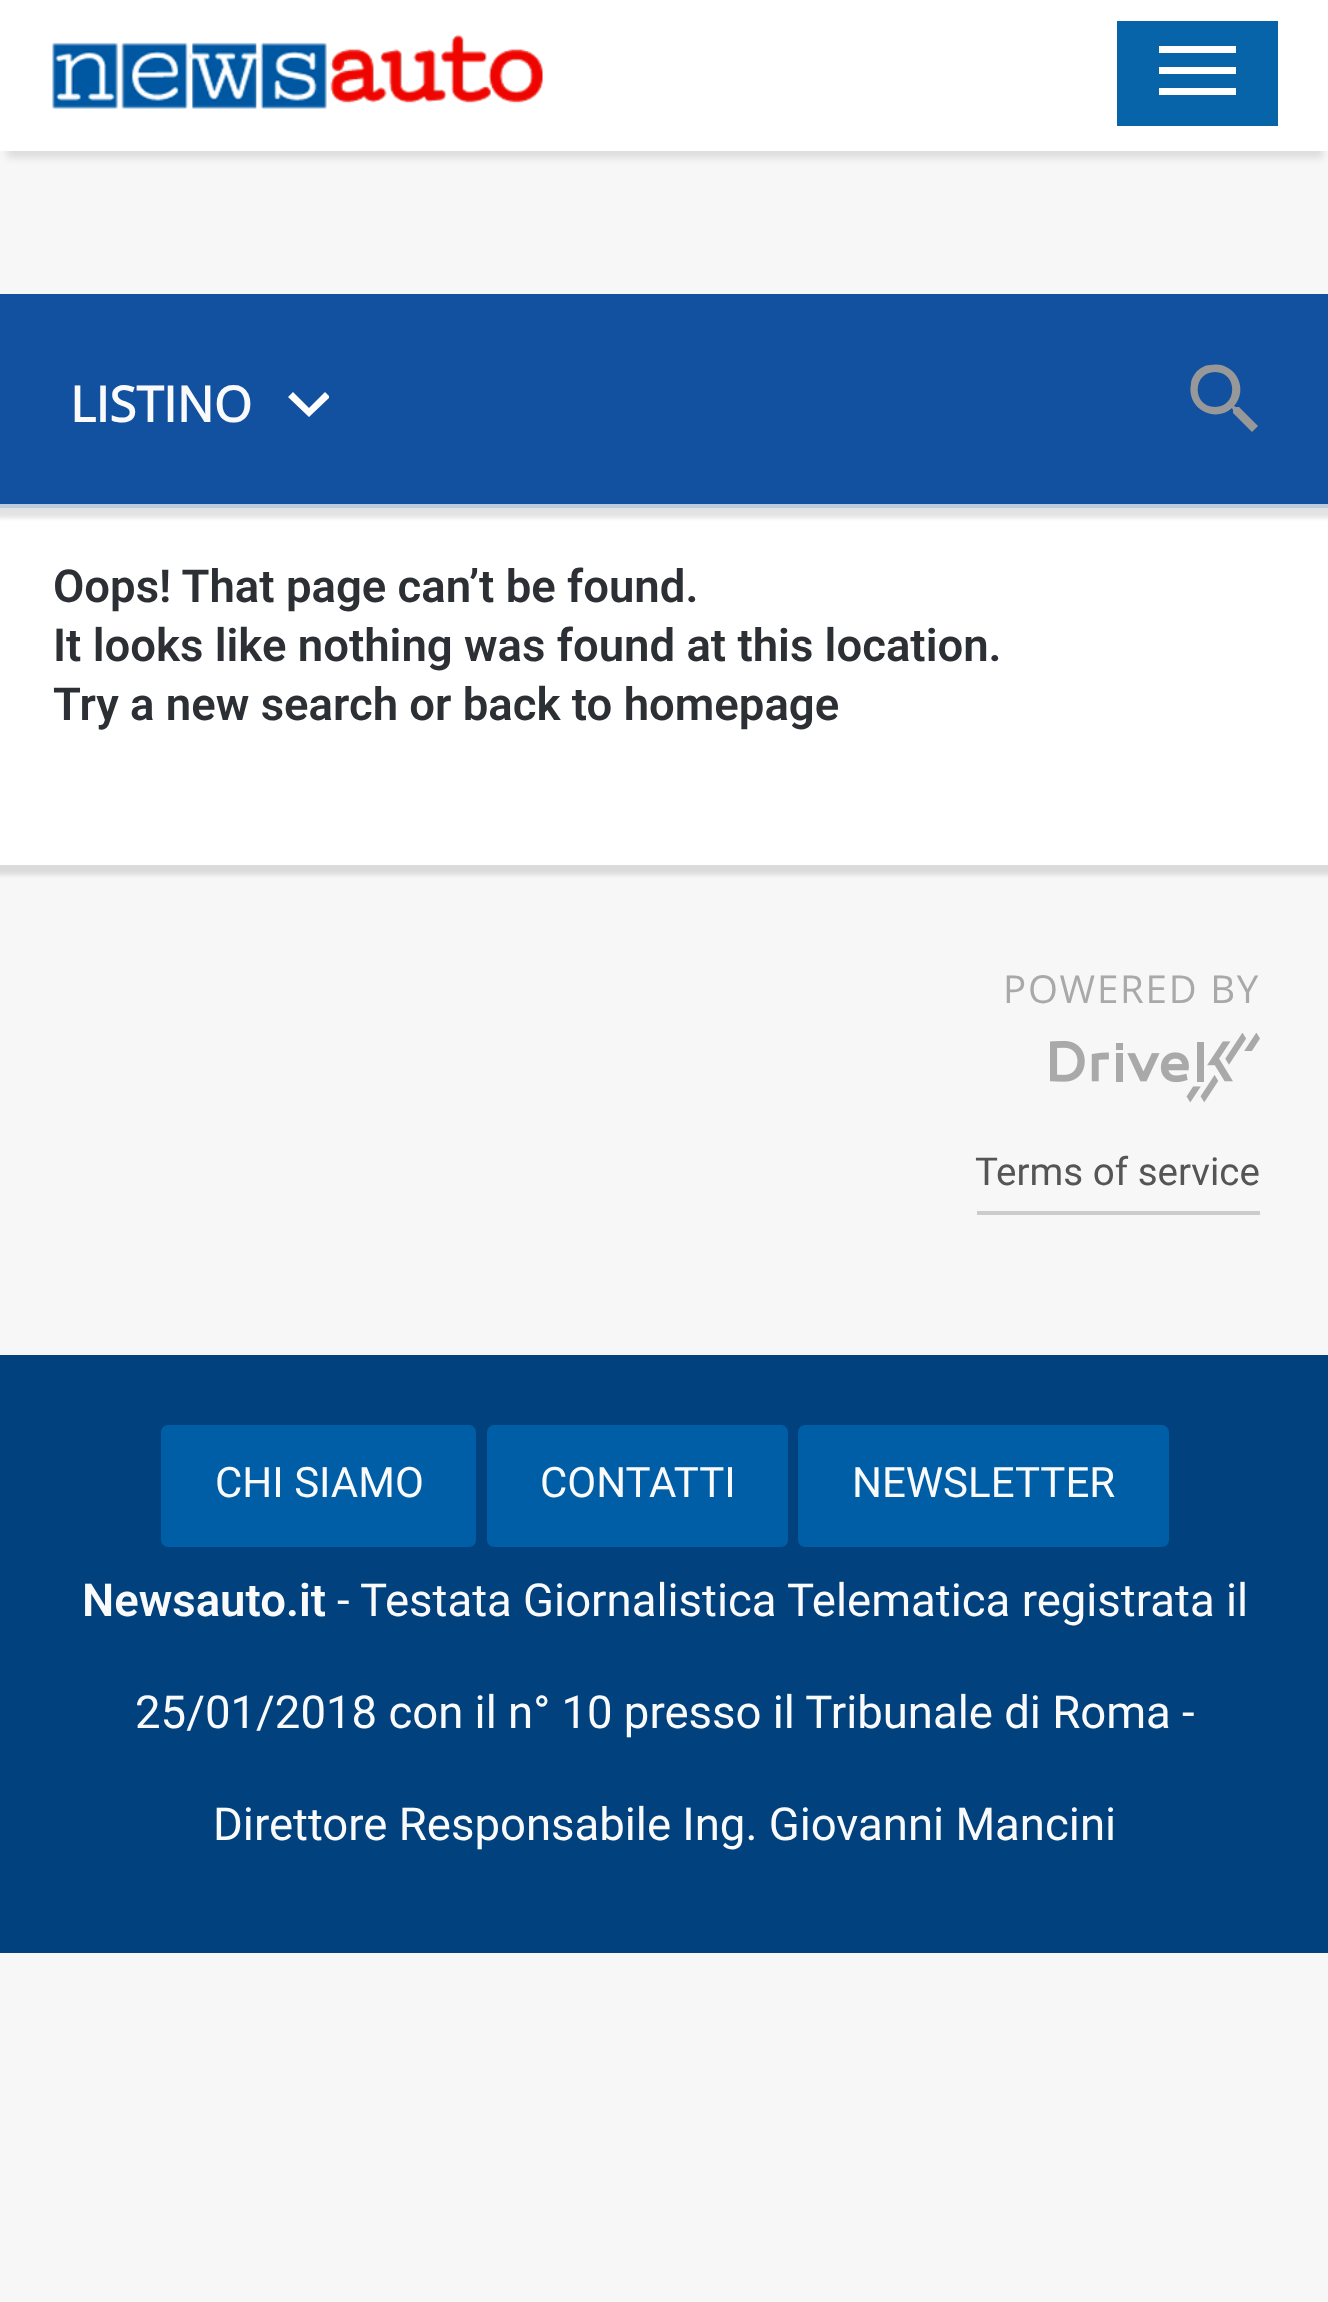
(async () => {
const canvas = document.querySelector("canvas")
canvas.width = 1328
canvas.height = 2302
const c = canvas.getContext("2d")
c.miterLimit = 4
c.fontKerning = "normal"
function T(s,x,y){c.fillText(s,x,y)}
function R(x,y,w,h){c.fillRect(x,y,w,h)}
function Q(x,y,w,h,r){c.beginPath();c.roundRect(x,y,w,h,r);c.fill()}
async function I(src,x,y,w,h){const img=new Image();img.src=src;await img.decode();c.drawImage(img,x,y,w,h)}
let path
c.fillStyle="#f7f7f7"
R(0,0,1328,2302)
c.fillStyle="#0000001a"
c.filter="blur(3.5px)"
c.beginPath()
c.rect(7,21,1316,137)
c.fill()
c.filter="none"
c.fillStyle="#fff"
R(0,0,1328,151)
await I("1.png",52,35,491,74)
c.fillStyle="#0864a8"
R(1117,21,161,105)
c.fillStyle="#fff"
R(1159,67,77,7)
R(1159,46,77,7)
R(1159,88,77,7)
c.fillStyle="#0000001c"
c.filter="blur(2px)"
c.beginPath()
c.rect(-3,504,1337,371)
c.fill()
c.filter="none"
c.fillStyle="#fff"
R(0,508,1328,357)
c.save()
c.beginPath()
c.rect(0,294,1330,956)
c.clip()
c.fillStyle="#0000001c"
c.filter="blur(2px)"
c.beginPath()
c.rect(-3,291,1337,227)
c.fill()
c.filter="none"
c.restore()
c.fillStyle="#1251a0"
R(0,294,1328,210)
c.fillStyle="#bccedb"
R(0,504,1328,4)
c.fillStyle="#989898"
path = new Path2D("M1239 407h-3l-2-1c16-18 0-46-24-41c-5 0-9 3-13 6c-3 4-6 8-6 13c-5 24 23 40 41 24l1 2v3l19 19l6-6zm-24 0c-23 0-23-35 0-35c23 0 23 35 0 35z")
c.fill(path,"evenodd")
c.font="bold 49px Open Sans"
c.fillStyle="#fafafa"
T("LISTINO",70,422)
c.fillStyle="#fff"
path = new Path2D("M329 396v2l-20 19l-21-20l5-5l16 16l16-16z")
c.fill(path)
c.font="600 45.5px Roboto"
c.fillStyle="#2c2f34"
T("Oops! That page can’t be found.",53,602)
T("It looks like nothing was found at this location.",53,661)
T("Try a new search or back to homepage",53,720)
c.letterSpacing="1.75px"
c.font="38.5px Open Sans"
c.fillStyle="#a9a9a9"
T("POWERED BY",1003,1003)
await I("2.png",1050,1033,210,70)
c.fillStyle="#ccc"
R(977,1211,283,4)
c.letterSpacing="0px"
c.font="38.5px Roboto"
c.fillStyle="#555"
T("Terms of service",975,1185)
c.fillStyle="#01417d"
R(0,1355,1328,598)
c.fillStyle="#005ea6"
Q(161,1425,315,122,7)
c.font="42px Roboto"
c.fillStyle="#fafafa"
T("CHI SIAMO",215,1497)
c.fillStyle="#005ea6"
Q(487,1425,301,122,7)
c.fillStyle="#fafafa"
T("CONTATTI",540,1497)
c.fillStyle="#005ea6"
Q(798,1425,371,122,7)
c.fillStyle="#fafafa"
T("NEWSLETTER",852,1497)
c.font="600 45.5px Roboto"
T("Newsauto.it",82,1616)
c.font="45.5px Roboto"
T("- Testata Giornalistica Telematica registrata il",337,1616)
T("25/01/2018 con il n° 10 presso il Tribunale di Roma -",135,1728)
T("Direttore Responsabile Ing. Giovanni Mancini",213,1840)
})()
